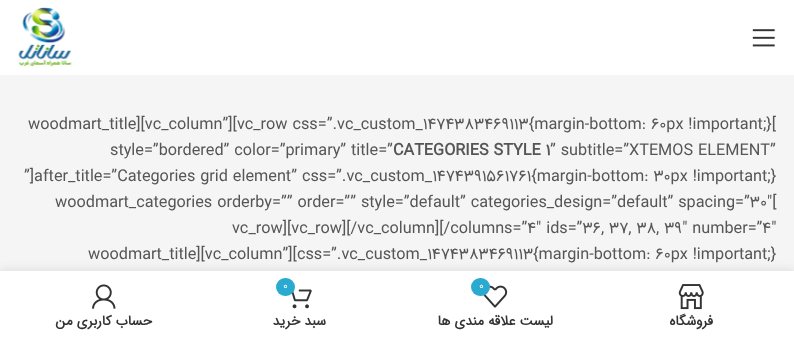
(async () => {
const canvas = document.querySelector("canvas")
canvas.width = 794
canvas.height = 340
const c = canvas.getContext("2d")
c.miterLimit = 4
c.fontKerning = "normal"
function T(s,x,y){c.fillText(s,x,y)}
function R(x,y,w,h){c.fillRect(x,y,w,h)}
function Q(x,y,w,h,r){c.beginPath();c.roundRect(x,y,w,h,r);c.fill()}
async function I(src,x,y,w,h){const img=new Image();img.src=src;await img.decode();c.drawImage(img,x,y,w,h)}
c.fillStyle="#f5f5f5"
R(0,0,794,340)
c.fillStyle="#fff"
R(0,0,794,75)
await I("1.png",18,7,54,60)
await I("2.png",752,29,23,18)
c.font="16.25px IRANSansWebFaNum"
c.fillStyle="#565656"
T("woodmart_title][vc_column”][vc_row css=”.vc_custom_1474383469113{margin-bottom: 60px !important;}[",28,129)
T("style=”bordered” color=”primary” title=”",110,155)
c.font="bold 16.25px IRANSansWebFaNum"
T("CATEGORIES STYLE 1",393,155)
c.font="16.25px IRANSansWebFaNum"
T("” subtitle=”XTEMOS ELEMENT”",550,155)
T("”]after_title=”Categories grid element” css=”.vc_custom_1474391561761{margin-bottom: 30px !important;}",24,181)
T("woodmart_categories orderby=”” order=”” style=”default” categories_design=”default” spacing=”30″[",55,207)
T("vc_row][vc_row][/vc_column][/columns=”4″ ids=”36, 37, 38, 39″ number=”4″",232,233)
T("woodmart_title][vc_column”][css=”.vc_custom_1474383469113{margin-bottom: 60px !important;}",88,259)
c.fillStyle="#0000001f"
c.filter="blur(5.5px)"
c.beginPath()
c.rect(0,271,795,69)
c.fill()
c.filter="none"
c.fillStyle="#fff"
R(0,271,794,69)
await I("3.png",92,284,24,25)
c.direction="rtl"
c.font="bold 13.75px IRANSansWebFaNum"
c.fillStyle="#333"
T("حساب کاربری من",152,325)
await I("4.png",291,289,21,20)
c.fillStyle="#2baad0"
Q(276,278,19,18,9)
c.direction="ltr"
c.font="11px IRANSansWebFaNum"
c.fillStyle="#fff"
T("0",283,289)
c.direction="rtl"
c.font="bold 13.75px IRANSansWebFaNum"
c.fillStyle="#333"
T("سبد خرید",326,325)
await I("5.png",483,285,25,23)
c.fillStyle="#2baad0"
Q(471,278,19,18,9)
c.direction="ltr"
c.font="11px IRANSansWebFaNum"
c.fillStyle="#fff"
T("0",479,289)
c.direction="rtl"
c.font="bold 13.75px IRANSansWebFaNum"
c.fillStyle="#333"
T("لیست علاقه مندی ها",553,325)
await I("6.png",678,284,26,26)
T("فروشگاه",713,325)
})()
